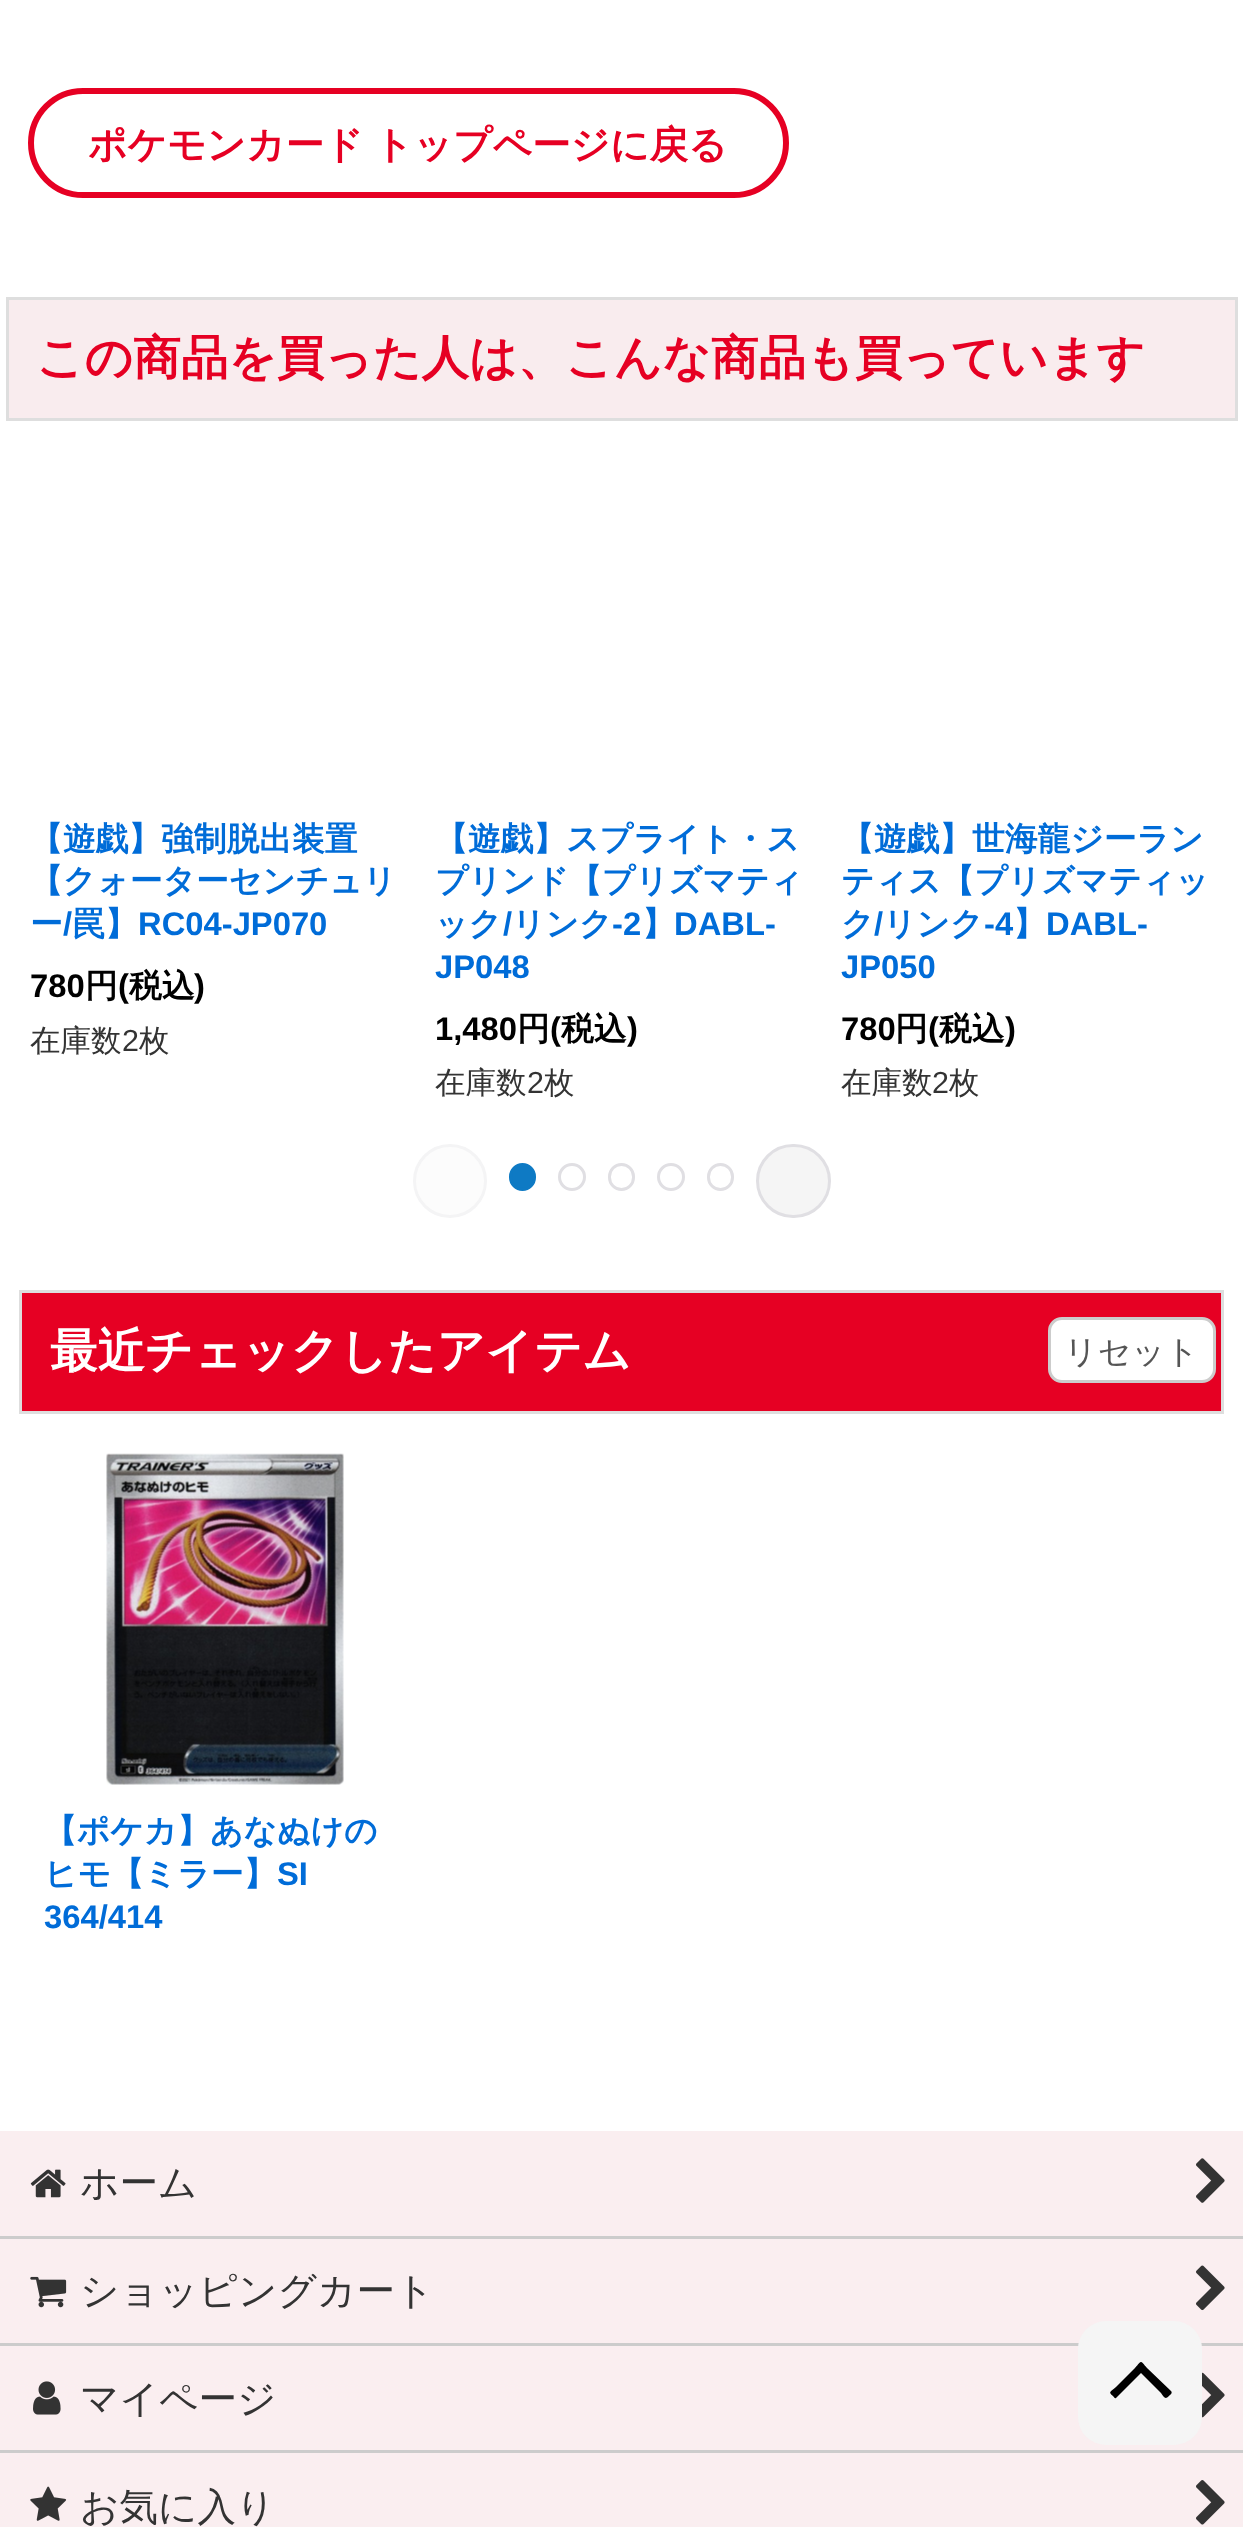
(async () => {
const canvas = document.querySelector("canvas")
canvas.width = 1243
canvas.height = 2527
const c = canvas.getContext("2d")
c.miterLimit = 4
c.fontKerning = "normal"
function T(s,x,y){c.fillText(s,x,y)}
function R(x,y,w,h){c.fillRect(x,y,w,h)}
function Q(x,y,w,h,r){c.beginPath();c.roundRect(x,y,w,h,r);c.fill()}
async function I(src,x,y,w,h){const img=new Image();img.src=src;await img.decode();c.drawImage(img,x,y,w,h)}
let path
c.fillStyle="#fff"
R(0,0,1243,2527)
c.beginPath()
c.roundRect(31,91,755,104,52)
c.strokeStyle="#e60023"
c.lineWidth=6
c.stroke()
c.wordSpacing="-1px"
c.font="bold 38.6px WenQuanYi Zen Hei"
c.fillStyle="#e60023"
T("ポケモンカード トップページに戻る",88,158)
c.fillStyle="#f9ecee"
c.beginPath()
c.rect(7.5,298.5,1229,121)
c.fill()
c.strokeStyle="#dedede"
c.lineWidth=3
c.stroke()
c.wordSpacing="0px"
c.font="bold 47.5px WenQuanYi Zen Hei"
c.fillStyle="#e60023"
T("この商品を買った人は、こんな商品も買っています",36,374)
c.font="bold 32.75px WenQuanYi Zen Hei"
c.fillStyle="#006cd8"
T("【遊戯】強制脱出装置",30,850)
T("【クォーターセンチュリ",30,892)
T("ー",30,935)
c.font="bold 32.75px Liberation Sans"
T("/",63,935)
c.font="bold 32.75px WenQuanYi Zen Hei"
T("罠】",72,935)
c.font="bold 32.75px Liberation Sans"
T("RC04-JP070",138,935)
c.fillStyle="#000"
T("780",30,997)
c.font="bold 32.75px WenQuanYi Zen Hei"
T("円",85,997)
c.font="bold 32.75px Liberation Sans"
T("(",118,997)
c.font="bold 32.75px WenQuanYi Zen Hei"
T("税込",129,997)
c.font="bold 32.75px Liberation Sans"
T(")",194,997)
c.font="500 30.5px WenQuanYi Zen Hei"
c.fillStyle="#333"
T("在庫数",30,1051)
c.font="30.5px Liberation Sans"
T("2",122,1051)
c.font="500 30.5px WenQuanYi Zen Hei"
T("枚",139,1051)
c.font="bold 32.75px WenQuanYi Zen Hei"
c.fillStyle="#006cd8"
T("【遊戯】スプライト・ス",435,850)
T("プリンド【プリズマティ",435,892)
T("ック",435,935)
c.font="bold 32.75px Liberation Sans"
T("/",503,935)
c.font="bold 32.75px WenQuanYi Zen Hei"
T("リンク",512,935)
c.font="bold 32.75px Liberation Sans"
T("-2",612,935)
c.font="bold 32.75px WenQuanYi Zen Hei"
T("】",642,935)
c.font="bold 32.75px Liberation Sans"
T("DABL-",674,935)
T("JP048",435,978)
c.fillStyle="#000"
T("1,480",435,1040)
c.font="bold 32.75px WenQuanYi Zen Hei"
T("円",517,1040)
c.font="bold 32.75px Liberation Sans"
T("(",550,1040)
c.font="bold 32.75px WenQuanYi Zen Hei"
T("税込",561,1040)
c.font="bold 32.75px Liberation Sans"
T(")",627,1040)
c.font="500 30.5px WenQuanYi Zen Hei"
c.fillStyle="#333"
T("在庫数",435,1093)
c.font="30.5px Liberation Sans"
T("2",527,1093)
c.font="500 30.5px WenQuanYi Zen Hei"
T("枚",544,1093)
c.font="bold 32.75px WenQuanYi Zen Hei"
c.fillStyle="#006cd8"
T("【遊戯】世海龍ジーラン",841,850)
T("ティス【プリズマティッ",841,892)
T("ク",841,935)
c.font="bold 32.75px Liberation Sans"
T("/",874,935)
c.font="bold 32.75px WenQuanYi Zen Hei"
T("リンク",883,935)
c.font="bold 32.75px Liberation Sans"
T("-4",984,935)
c.font="bold 32.75px WenQuanYi Zen Hei"
T("】",1013,935)
c.font="bold 32.75px Liberation Sans"
T("DABL-",1046,935)
T("JP050",841,978)
c.fillStyle="#000"
T("780",841,1040)
c.font="bold 32.75px WenQuanYi Zen Hei"
T("円",895,1040)
c.font="bold 32.75px Liberation Sans"
T("(",928,1040)
c.font="bold 32.75px WenQuanYi Zen Hei"
T("税込",939,1040)
c.font="bold 32.75px Liberation Sans"
T(")",1005,1040)
c.font="500 30.5px WenQuanYi Zen Hei"
c.fillStyle="#333"
T("在庫数",841,1093)
c.font="30.5px Liberation Sans"
T("2",932,1093)
c.font="500 30.5px WenQuanYi Zen Hei"
T("枚",949,1093)
c.fillStyle="#fcfcfc"
c.beginPath()
c.arc(450,1181,35.5,0,7)
c.fill()
c.strokeStyle="#f4f4f5"
c.stroke()
c.fillStyle="#0e7ac4"
c.beginPath()
c.roundRect(510.5,1164.5,24,25,12)
c.fill()
c.strokeStyle="#0e7ac4"
c.stroke()
c.beginPath()
c.arc(572,1177,12.5,0,7)
c.strokeStyle="#e0dfe3"
c.stroke()
c.beginPath()
c.roundRect(609.5,1164.5,24,25,12)
c.stroke()
c.beginPath()
c.arc(671,1177,12.5,0,7)
c.stroke()
c.beginPath()
c.roundRect(708.5,1164.5,24,25,12)
c.stroke()
c.fillStyle="#f5f5f5"
c.beginPath()
c.roundRect(757.5,1145.5,72,71,35.5)
c.fill()
c.stroke()
c.fillStyle="#e60023"
c.beginPath()
c.rect(20.5,1291.5,1202,121)
c.fill()
c.strokeStyle="#dedede"
c.stroke()
c.font="bold 47.5px WenQuanYi Zen Hei"
c.fillStyle="#fff"
T("最近チェックしたアイテム",50,1367)
c.beginPath()
c.roundRect(1049.5,1318.5,165,63,12.5)
c.fill()
c.strokeStyle="#ccc"
c.stroke()
c.font="500 33px WenQuanYi Zen Hei"
c.fillStyle="#555"
T("リセット",1064,1363)
await I("1.png",106,1453,238,332)
c.font="bold 32.75px WenQuanYi Zen Hei"
c.fillStyle="#006cd8"
T("【ポケカ】あなぬけの",44,1842)
T("ヒモ【ミラー】",44,1885)
c.font="bold 32.75px Liberation Sans"
T("SI",277,1885)
T("364/414",44,1928)
c.fillStyle="#faeef0"
R(0,2131,1243,396)
c.fillStyle="#ccc"
R(0,2236,1243,3)
await I("2.png",30,2169,36,29)
c.font="500 38.6px WenQuanYi Zen Hei"
c.fillStyle="#333"
T("ホーム",80,2196)
await I("3.png",1196,2158,29,45)
c.fillStyle="#ccc"
R(0,2343,1243,3)
await I("4.png",30,2276,37,32)
c.fillStyle="#333"
T("ショッピングカート",80,2304)
await I("5.png",1196,2265,29,46)
c.fillStyle="#ccc"
R(0,2450,1243,3)
await I("6.png",33,2381,28,34)
c.fillStyle="#333"
T("マイページ",80,2412)
await I("7.png",1201,2372,24,46)
await I("8.png",30,2486,37,35)
T("お気に入り",80,2520)
await I("9.png",1196,2480,29,45)
c.fillStyle="#f5f5f5"
Q(1078,2321,124,124,28)
c.fillStyle="#000"
path = new Path2D("M1171 2391c2 2-1 4-2 5c-4 4-5 1-8-3l-20-20l-25 25c-1 1-2-1-3-2c-5-4-3-4 3-9l19-19c7-8 5-8 12 0z")
c.fill(path)
})()
